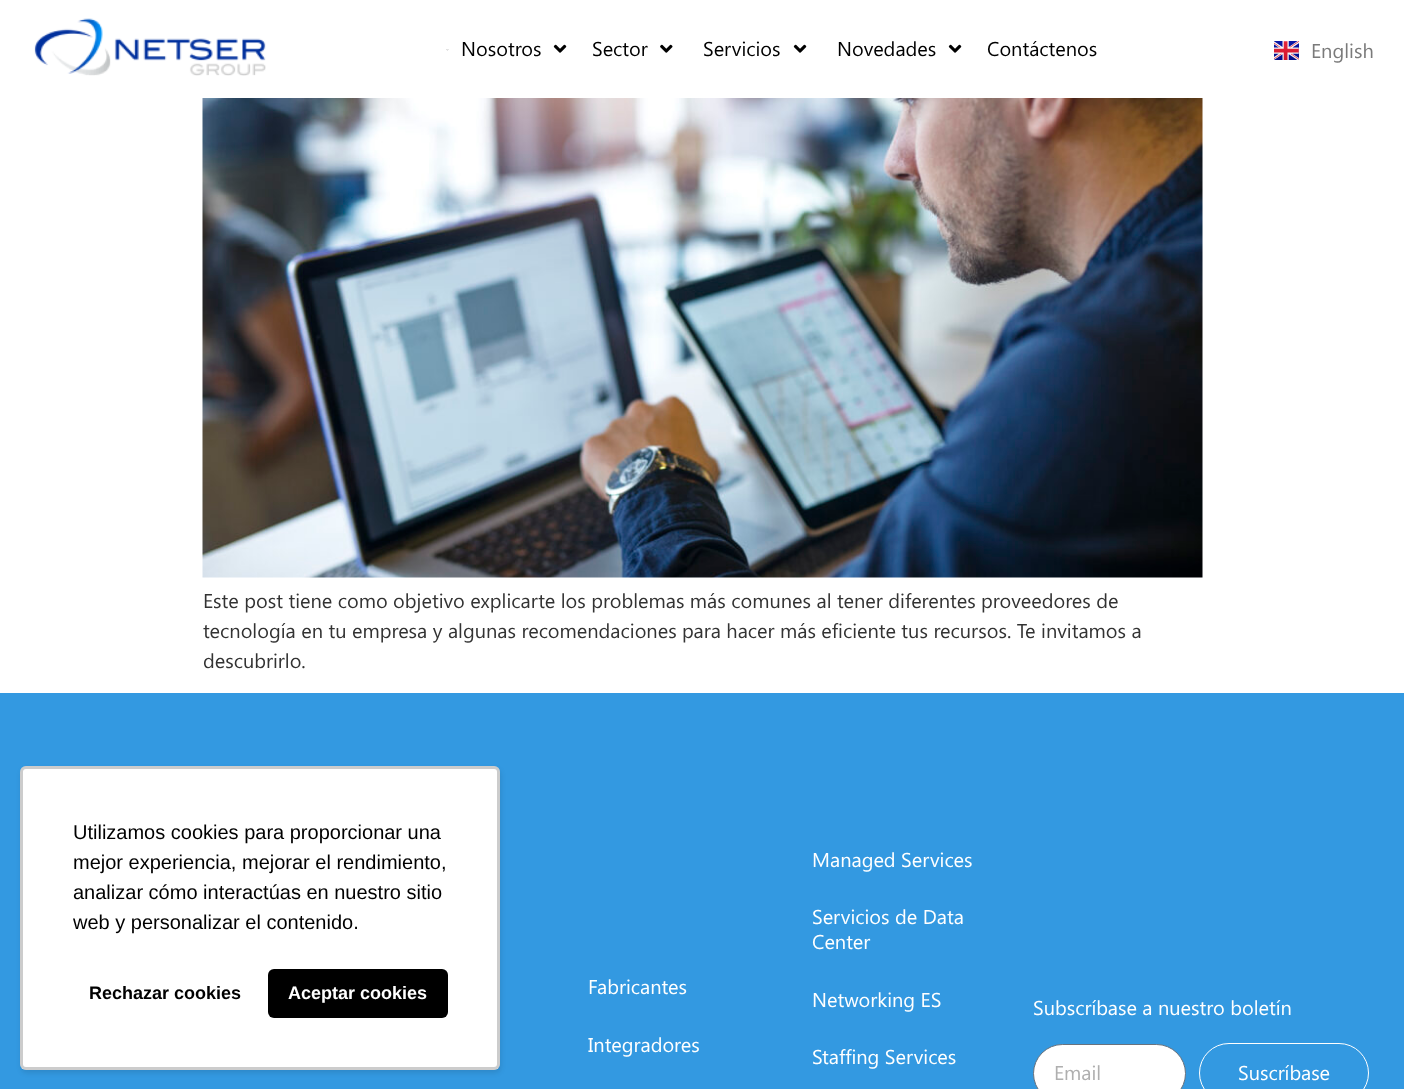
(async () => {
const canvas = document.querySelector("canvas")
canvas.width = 1404
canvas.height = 1089
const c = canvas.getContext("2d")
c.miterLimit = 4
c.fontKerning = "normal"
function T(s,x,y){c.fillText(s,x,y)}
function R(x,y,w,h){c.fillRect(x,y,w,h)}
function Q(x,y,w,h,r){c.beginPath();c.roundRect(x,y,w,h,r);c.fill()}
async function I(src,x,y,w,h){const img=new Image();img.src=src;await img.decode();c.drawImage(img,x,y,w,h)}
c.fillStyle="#fff"
R(0,0,1404,1089)
await I("1.png",34,18,232,58)
await I("2.png",446,49,3,2)
c.font="20px Segoe UI"
c.fillStyle="#000"
T("Nosotros",461,56)
await I("3.png",553,44,14,9)
T("Sector",592,56)
await I("4.png",660,44,13,9)
T("Servicios",703,56)
await I("3.png",793,44,14,9)
T("Novedades",837,56)
await I("3.png",948,44,14,9)
T("Contáctenos",987,56)
await I("5.png",1274,41,25,19)
c.fillStyle="#7a7a7a"
T("English",1311,58)
await I("6.png",202,98,1001,480)
c.fillStyle="#333"
T("Este post tiene como objetivo explicarte los problemas más comunes al tener diferentes proveedores de",203,608)
T("tecnología en tu empresa y algunas recomendaciones para hacer más eficiente tus recursos. Te invitamos a",203,638)
T("descubrirlo.",203,668)
c.fillStyle="#3399e1"
R(0,693,1404,396)
c.fillStyle="#0000001a"
c.filter="blur(2.5px)"
c.beginPath()
c.roundRect(21,769,480,304,6)
c.fill()
c.filter="none"
c.fillStyle="#fff"
Q(20,766,480,304,6)
c.beginPath()
c.roundRect(21.5,767.5,477,301,4.5)
c.strokeStyle="#00000033"
c.lineWidth=3
c.stroke()
c.font="20px Liberation Sans"
c.fillStyle="#000"
T("Utilizamos cookies para proporcionar una",73,839)
T("mejor experiencia, mejorar el rendimiento,",73,869)
T("analizar cómo interactúas en nuestro sitio",73,899)
T("web y personalizar el contenido.",73,929)
c.font="bold 18px Liberation Sans"
T("Rechazar cookies",89,999)
Q(268,969,180,49,6)
c.fillStyle="#fff"
T("Aceptar cookies",288,999)
c.font="20px Segoe UI"
T("Fabricantes",588,994)
T("Integradores",588,1052)
T("Managed Services",812,867)
T("Servicios de Data",812,924)
T("Center",812,949)
T("Networking ES",812,1007)
T("Staffing Services",812,1064)
T("Subscríbase a nuestro boletín",1033,1015)
c.beginPath()
c.roundRect(1033.5,1044.5,152,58,29)
c.fill()
c.strokeStyle="#69727d"
c.lineWidth=1
c.stroke()
c.fillStyle="#afafaf"
T("Email",1054,1080)
c.beginPath()
c.roundRect(1199.5,1043.5,169,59,29.5)
c.strokeStyle="#fff"
c.stroke()
c.fillStyle="#fff"
T("Suscríbase",1238,1080)
})()
